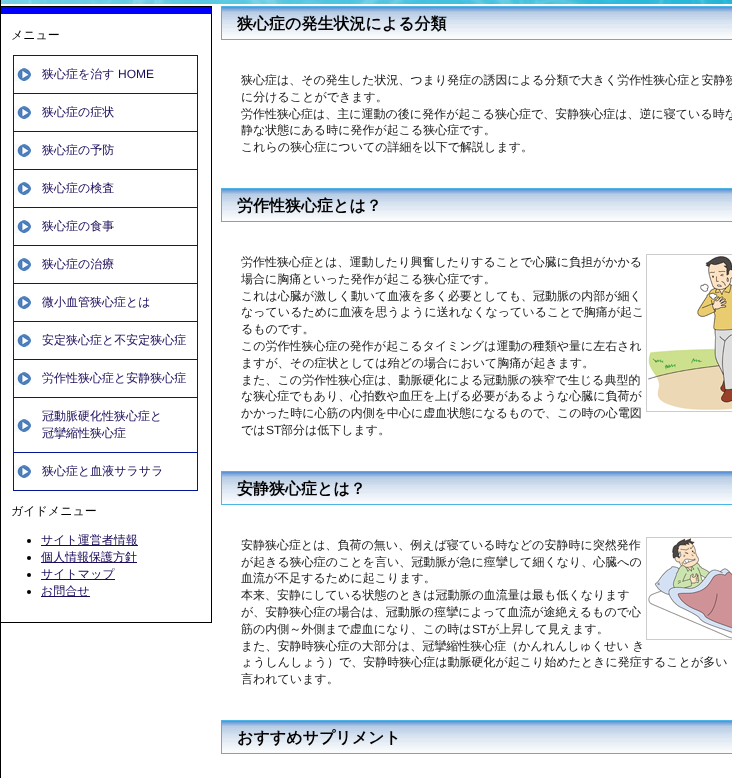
(async () => {
const canvas = document.querySelector("canvas")
canvas.width = 732
canvas.height = 778
const c = canvas.getContext("2d")
c.miterLimit = 4
c.fontKerning = "normal"
function T(s,x,y){c.fillText(s,x,y)}
function R(x,y,w,h){c.fillRect(x,y,w,h)}
async function I(src,x,y,w,h){const img=new Image();img.src=src;await img.decode();c.drawImage(img,x,y,w,h)}
c.fillStyle="#fff"
R(0,0,732,778)
c.strokeStyle="#000"
c.strokeRect(.5,-.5,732,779)
await I("1.png",1,0,731,4)
c.fillStyle="#00f"
R(0,7,212,7)
c.strokeRect(.5,6.5,211,616)
c.font="500 12px WenQuanYi Zen Hei"
c.fillStyle="#000"
T("メニュー",11,39)
await I("2.png",14,68,17,13)
c.strokeStyle="#001798"
c.strokeRect(13.5,55.5,184,38)
c.fillStyle="#1c0b5a"
T("狭心症を治す",42,78)
c.font="12px Liberation Sans"
T("HOME",118,78)
await I("2.png",14,106,17,13)
c.strokeRect(13.5,93.5,184,38)
c.font="500 12px WenQuanYi Zen Hei"
T("狭心症の症状",42,116)
await I("2.png",14,144,17,13)
c.strokeRect(13.5,131.5,184,38)
T("狭心症の予防",42,154)
await I("2.png",14,182,17,13)
c.strokeRect(13.5,169.5,184,38)
T("狭心症の検査",42,192)
await I("2.png",14,220,17,13)
c.strokeRect(13.5,207.5,184,38)
T("狭心症の食事",42,230)
await I("2.png",14,258,17,13)
c.strokeRect(13.5,245.5,184,38)
T("狭心症の治療",42,268)
await I("2.png",14,296,17,13)
c.strokeRect(13.5,283.5,184,38)
T("微小血管狭心症とは",42,306)
await I("2.png",14,334,17,13)
c.strokeRect(13.5,321.5,184,38)
T("安定狭心症と不安定狭心症",42,344)
await I("2.png",14,372,17,13)
c.strokeRect(13.5,359.5,184,38)
T("労作性狭心症と安静狭心症",42,382)
await I("2.png",14,419,17,13)
c.strokeRect(13.5,397.5,184,55)
T("冠動脈硬化性狭心症と",42,420)
T("冠攣縮性狭心症",42,437)
await I("2.png",14,465,17,13)
c.strokeRect(13.5,452.5,184,38)
T("狭心症と血液サラサラ",42,475)
c.fillStyle="#000"
T("ガイドメニュー",11,515)
c.beginPath()
c.arc(29,541,2,0,7)
c.fill()
c.fillStyle="#1c0b5a"
R(41,545,97,1)
T("サイト運営者情報",41,544)
c.fillStyle="#000"
c.beginPath()
c.arc(29,558,2,0,7)
c.fill()
c.fillStyle="#1c0b5a"
R(41,562,96,1)
T("個人情報保護方針",41,561)
c.fillStyle="#000"
c.beginPath()
c.arc(29,575,2,0,7)
c.fill()
c.fillStyle="#1c0b5a"
R(41,579,74,1)
T("サイトマップ",41,578)
c.fillStyle="#000"
c.beginPath()
c.arc(29,592,2,0,7)
c.fill()
c.fillStyle="#1c0b5a"
R(41,596,49,1)
T("お問合せ",41,595)
await I("3.png",222,7,510,32)
c.strokeStyle="#4cb5e8"
c.strokeRect(221.5,6.5,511,33)
c.font="bold 16px WenQuanYi Zen Hei"
c.fillStyle="#000"
T("狭心症の発生状況による分類",237,29)
c.font="500 12px WenQuanYi Zen Hei"
c.fillStyle="#1a1a1a"
T("狭心症は、その発生した状況、つまり発症の誘因による分類で大きく労作性狭心症と安静狭",241,84)
T("に分けることができます。",241,101)
T("労作性狭心症は、主に運動の後に発作が起こる狭心症で、安静狭心症は、逆に寝ている時な",241,118)
T("静な状態にある時に発作が起こる狭心症です。",241,134)
T("これらの狭心症についての詳細を以下で解説します。",241,151)
await I("3.png",222,189,510,32)
c.strokeRect(221.5,188.5,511,33)
c.font="bold 16px WenQuanYi Zen Hei"
c.fillStyle="#000"
T("労作性狭心症とは？",237,211)
c.font="500 12px WenQuanYi Zen Hei"
c.fillStyle="#1a1a1a"
T("労作性狭心症とは、運動したり興奮したりすることで心臓に負担がかかる",241,266)
await I("4.png",646,254,86,158)
T("場合に胸痛といった発作が起こる狭心症です。",241,283)
T("これは心臓が激しく動いて血液を多く必要としても、冠動脈の内部が細く",241,300)
T("なっているために血液を思うように送れなくなっていることで胸痛が起こ",241,316)
T("るものです。",241,333)
T("この労作性狭心症の発作が起こるタイミングは運動の種類や量に左右され",241,350)
T("ますが、その症状としては殆どの場合において胸痛が起きます。",241,367)
T("また、この労作性狭心症は、動脈硬化による冠動脈の狭窄で生じる典型的",241,384)
T("な狭心症でもあり、心拍数や血圧を上げる必要があるような心臓に負荷が",241,400)
T("かかった時に心筋の内側を中心に虚血状態になるもので、この時の心電図",241,417)
T("では",241,434)
c.font="12px Liberation Sans"
T("ST",266,434)
c.font="500 12px WenQuanYi Zen Hei"
T("部分は低下します。",281,434)
await I("3.png",222,472,510,32)
c.strokeRect(221.5,471.5,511,33)
c.font="bold 16px WenQuanYi Zen Hei"
c.fillStyle="#000"
T("安静狭心症とは？",237,494)
c.font="500 12px WenQuanYi Zen Hei"
c.fillStyle="#1a1a1a"
T("安静狭心症とは、負荷の無い、例えば寝ている時などの安静時に突然発作",241,549)
await I("5.png",646,537,86,103)
T("が起きる狭心症のことを言い、冠動脈が急に痙攣して細くなり、心臓への",241,566)
T("血流が不足するために起こります。",241,582)
T("本来、安静にしている状態のときは冠動脈の血流量は最も低くなります",241,599)
T("が、安静狭心症の場合は、冠動脈の痙攣によって血流が途絶えるもので心",241,616)
T("筋の内側～外側まで虚血になり、この時は",241,633)
c.font="12px Liberation Sans"
T("ST",472,633)
c.font="500 12px WenQuanYi Zen Hei"
T("が上昇して見えます。",487,633)
T("また、安静時狭心症の大部分は、冠攣縮性狭心症（かんれんしゅくせい き",241,650)
T("ょうしんしょう）で、安静時狭心症は動脈硬化が起こり始めたときに発症することが多い",241,666)
T("言われています。",241,683)
await I("3.png",222,721,510,32)
c.strokeRect(221.5,720.5,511,33)
c.font="bold 16px WenQuanYi Zen Hei"
c.fillStyle="#000"
T("おすすめサプリメント",237,743)
})()
